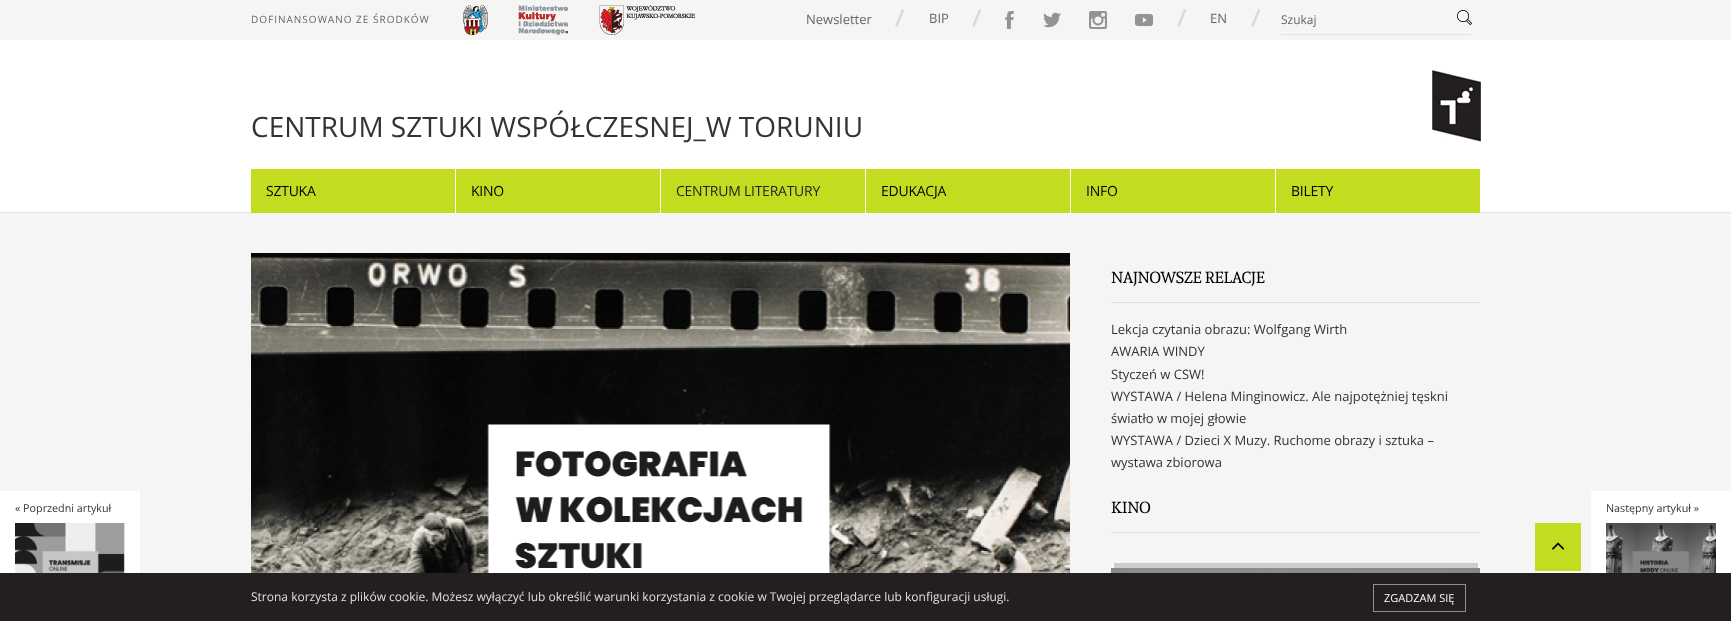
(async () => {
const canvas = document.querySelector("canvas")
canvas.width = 1731
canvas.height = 621
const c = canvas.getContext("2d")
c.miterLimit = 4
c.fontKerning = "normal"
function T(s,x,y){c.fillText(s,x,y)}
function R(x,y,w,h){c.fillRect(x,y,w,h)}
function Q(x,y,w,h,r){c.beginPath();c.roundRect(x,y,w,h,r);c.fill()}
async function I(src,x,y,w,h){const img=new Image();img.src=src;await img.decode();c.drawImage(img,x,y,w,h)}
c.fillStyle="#f5f5f5"
R(0,0,1731,621)
c.letterSpacing="1px"
c.font="10px Open Sans"
c.fillStyle="#666"
T("DOFINANSOWANO ZE ŚRODKÓW",251,23)
await I("1.png",463,5,25,30)
await I("2.png",518,5,50,30)
await I("3.png",599,5,96,30)
c.letterSpacing="0px"
c.font="13px Open Sans"
T("Newsletter",806,24)
await I("4.png",895,9,9,18)
T("BIP",929,23)
await I("4.png",972,9,9,18)
await I("5.png",1005,11,9,18)
await I("6.png",1043,12,18,16)
await I("7.png",1089,11,18,18)
await I("8.png",1135,14,18,12)
await I("4.png",1177,9,9,18)
T("EN",1210,23)
await I("4.png",1251,9,9,18)
c.fillStyle="#e3e3e3"
R(1281,34,190,1)
c.font="12px Open Sans"
c.fillStyle="#666"
T("Szukaj",1281,24)
await I("9.png",1457,10,15,15)
c.fillStyle="#fff"
R(0,40,1731,172)
c.fillStyle="#e3e3e3"
R(0,212,1731,1)
c.font="28px Open Sans"
c.fillStyle="#333"
T("CENTRUM SZTUKI WSPÓŁCZESNEJ_W TORUNIU",251,137)
await I("10.png",1432,70,49,72)
c.fillStyle="#c3dc20"
R(251,169,204,44)
c.letterSpacing="-0.25px"
c.font="14px Open Sans"
c.fillStyle="#000"
T("SZTUKA",266,196)
c.fillStyle="#c3dc20"
R(456,169,204,44)
c.fillStyle="#fff"
R(455,212,1,1)
c.fillStyle="#000"
T("KINO",471,196)
c.fillStyle="#c3dc20"
R(661,169,204,44)
c.fillStyle="#fff"
R(660,212,1,1)
c.fillStyle="#231f20"
T("CENTRUM LITERATURY",676,196)
c.fillStyle="#c3dc20"
R(866,169,204,44)
c.fillStyle="#fff"
R(865,212,1,1)
c.fillStyle="#000"
T("EDUKACJA",881,196)
c.fillStyle="#c3dc20"
R(1071,169,204,44)
c.fillStyle="#fff"
R(1070,212,1,1)
c.fillStyle="#000"
T("INFO",1086,196)
c.fillStyle="#c3dc20"
R(1276,169,204,44)
c.fillStyle="#fff"
R(1275,212,1,1)
c.fillStyle="#000"
T("BILETY",1291,196)
await I("11.png",251,253,819,320)
c.fillStyle="#ddd"
R(1111,302,369,1)
c.letterSpacing="-0.4px"
c.font="16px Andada"
c.fillStyle="#000"
T("NAJNOWSZE RELACJE",1111,283)
c.letterSpacing="0px"
c.font="13px Open Sans"
c.fillStyle="#333"
T("Lekcja czytania obrazu: Wolfgang Wirth",1111,334)
T("AWARIA WINDY",1111,356)
T("Styczeń w CSW!",1111,379)
T("WYSTAWA / Helena Minginowicz. Ale najpotężniej tęskni",1111,401)
T("światło w mojej głowie",1111,423)
T("WYSTAWA / Dzieci X Muzy. Ruchome obrazy i sztuka –",1111,445)
T("wystawa zbiorowa",1111,467)
c.fillStyle="#ddd"
R(1111,532,369,1)
c.letterSpacing="-0.4px"
c.font="16px Andada"
c.fillStyle="#000"
T("KINO",1111,513)
c.fillStyle="#fff"
Q(1111,563,369,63,5)
c.fillStyle="#ccc"
R(1114,563,364,5)
await I("12.png",1111,568,369,5)
c.fillStyle="#fff"
R(0,491,140,82)
c.letterSpacing="0px"
c.font="10.75px Open Sans"
c.fillStyle="#333"
T("« Poprzedni artykuł",15,512)
await I("13.png",15,523,110,50)
c.fillStyle="#fff"
R(1591,491,140,82)
c.fillStyle="#333"
T("Następny artykuł »",1606,512)
await I("14.png",1606,523,110,50)
c.fillStyle="#c3dc20"
R(1535,523,46,48)
await I("15.png",1552,542,13,8)
c.fillStyle="#231f20"
R(0,573,1731,48)
c.font="12px Open Sans"
c.fillStyle="#e1ddde"
T("Strona korzysta z plików cookie. Możesz wyłączyć lub określić warunki korzystania z cookie w Twojej przeglądarce lub konfiguracji usługi.",251,601)
c.strokeStyle="#928e8f"
c.strokeRect(1373.5,584.5,92,27)
c.font="11px Open Sans"
c.fillStyle="#fff"
T("ZGADZAM SIĘ",1384,602)
})()
